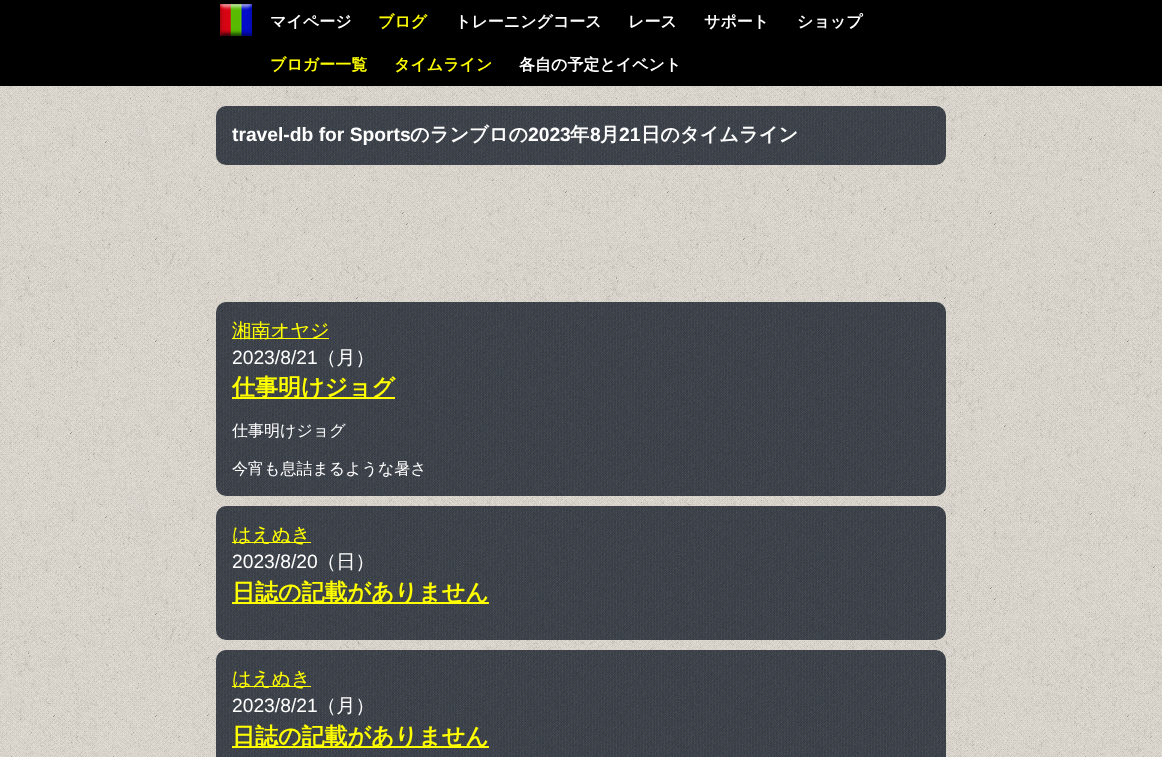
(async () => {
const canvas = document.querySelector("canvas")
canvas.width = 1162
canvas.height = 757
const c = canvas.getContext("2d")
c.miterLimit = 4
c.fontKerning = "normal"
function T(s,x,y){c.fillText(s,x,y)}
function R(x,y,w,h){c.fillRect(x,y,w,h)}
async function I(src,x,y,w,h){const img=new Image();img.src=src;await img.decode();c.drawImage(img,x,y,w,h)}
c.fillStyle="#fff"
R(0,0,1162,757)
await I("1.png",0,86,1162,671)
c.fillStyle="#000"
R(0,0,1162,86)
await I("2.png",220,4,32,32)
c.font="bold 16px WenQuanYi Zen Hei"
c.fillStyle="#fff"
T("マイページ",270,27)
c.fillStyle="#ff0"
T("ブログ",378,27)
c.fillStyle="#fff"
T("トレーニングコース",455,27)
T("レース",628,27)
T("サポート",704,27)
T("ショップ",797,27)
c.fillStyle="#ff0"
T("ブロガー一覧",270,70)
T("タイムライン",394,70)
c.fillStyle="#fff"
T("各自の予定とイベント",519,70)
await I("3.png",216,106,730,59)
c.font="bold 19.25px Liberation Sans"
T("travel-db for Sports",232,141)
c.font="bold 19.25px WenQuanYi Zen Hei"
T("のランブロの",410,141)
c.font="bold 19.25px Liberation Sans"
T("2023",528,141)
c.font="bold 19.25px WenQuanYi Zen Hei"
T("年",570,141)
c.font="bold 19.25px Liberation Sans"
T("8",590,141)
c.font="bold 19.25px WenQuanYi Zen Hei"
T("月",600,141)
c.font="bold 19.25px Liberation Sans"
T("21",619,141)
c.font="bold 19.25px WenQuanYi Zen Hei"
T("日のタイムライン",641,141)
await I("4.png",216,302,730,194)
c.fillStyle="#ff0"
R(232,338,97,1)
c.font="500 19.25px WenQuanYi Zen Hei"
T("湘南オヤジ",232,337)
c.font="19.25px Liberation Sans"
c.fillStyle="#fff"
T("2023/8/21",232,364)
c.font="500 19.25px WenQuanYi Zen Hei"
T("（月）",317,364)
c.fillStyle="#ff0"
R(232,397,163,2)
c.font="bold 23px WenQuanYi Zen Hei"
T("仕事明けジョグ",232,395)
c.font="500 16px WenQuanYi Zen Hei"
c.fillStyle="#fff"
T("仕事明けジョグ",232,436)
T("今宵も息詰まるような暑さ",232,474)
await I("5.png",216,506,730,134)
c.fillStyle="#ff0"
R(232,542,79,1)
c.font="500 19.25px WenQuanYi Zen Hei"
T("はえぬき",232,541)
c.font="19.25px Liberation Sans"
c.fillStyle="#fff"
T("2023/8/20",232,568)
c.font="500 19.25px WenQuanYi Zen Hei"
T("（日）",317,568)
c.fillStyle="#ff0"
R(232,602,257,2)
c.font="bold 23px WenQuanYi Zen Hei"
T("日誌の記載がありません",232,600)
await I("6.png",216,650,730,107)
R(232,686,79,1)
c.font="500 19.25px WenQuanYi Zen Hei"
T("はえぬき",232,685)
c.font="19.25px Liberation Sans"
c.fillStyle="#fff"
T("2023/8/21",232,712)
c.font="500 19.25px WenQuanYi Zen Hei"
T("（月）",317,712)
c.fillStyle="#ff0"
R(232,746,257,2)
c.font="bold 23px WenQuanYi Zen Hei"
T("日誌の記載がありません",232,744)
})()
